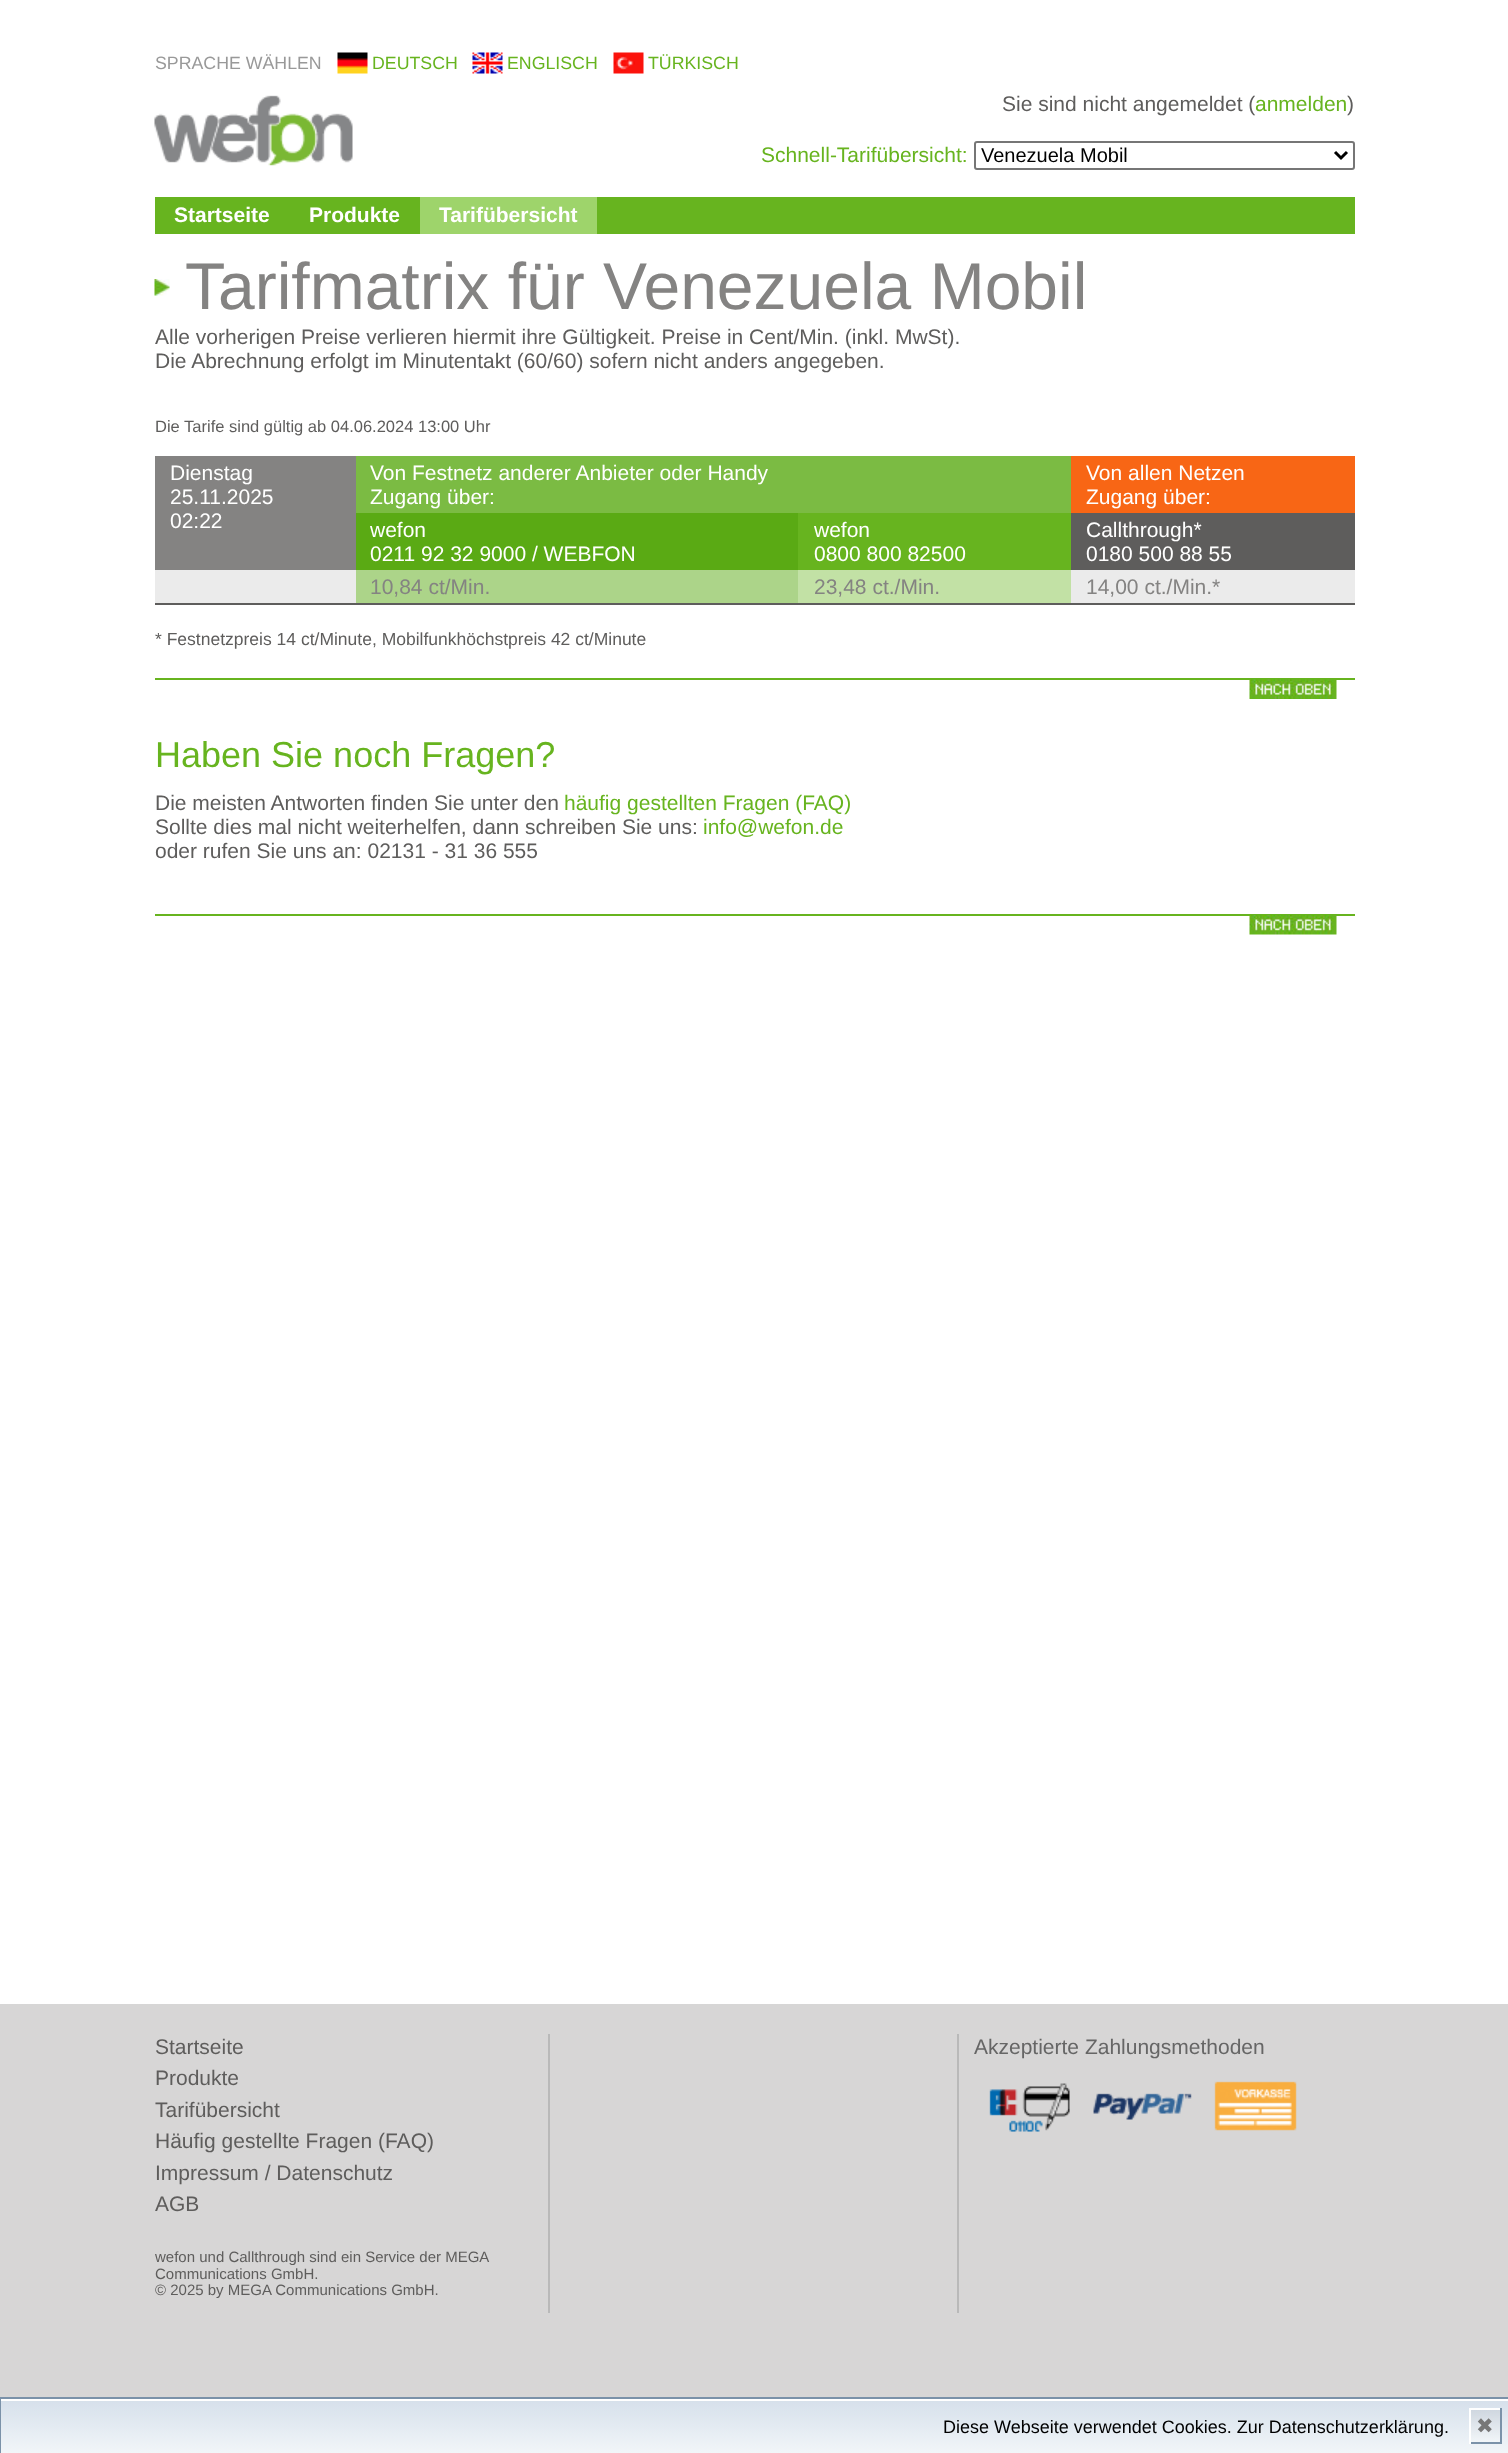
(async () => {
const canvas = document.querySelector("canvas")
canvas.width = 1508
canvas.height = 2453
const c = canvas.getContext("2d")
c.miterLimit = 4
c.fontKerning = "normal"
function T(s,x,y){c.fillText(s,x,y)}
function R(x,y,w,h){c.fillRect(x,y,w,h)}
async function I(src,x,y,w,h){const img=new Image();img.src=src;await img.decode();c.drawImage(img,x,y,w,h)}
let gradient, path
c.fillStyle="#fff"
R(0,0,1508,2453)
c.font="17.75px Liberation Sans"
c.fillStyle="#999"
T("SPRACHE WÄHLEN",155,69)
await I("1.png",337,52,31,22)
c.fillStyle="#67b41f"
T("DEUTSCH",372,69)
await I("2.png",472,52,31,22)
T("ENGLISCH",507,69)
await I("3.png",613,52,31,22)
T("TÜRKISCH",648,69)
await I("4.png",154,95,199,71)
c.font="21px Liberation Sans"
c.fillStyle="#5e5d5c"
T("Sie sind nicht angemeldet (",1002,111)
c.fillStyle="#67b41f"
T("anmelden",1255,111)
c.fillStyle="#5e5d5c"
T(")",1347,111)
c.fillStyle="#67b41f"
T("Schnell-Tarifübersicht:",761,162)
c.beginPath()
c.roundRect(975,142,379,27,2)
c.strokeStyle="#767676"
c.lineWidth=2
c.stroke()
path = new Path2D("M1335 152l6 6l6-6")
c.strokeStyle="#000"
c.lineWidth=3
c.stroke(path)
c.font="20px Liberation Sans"
c.fillStyle="#000"
T("Venezuela Mobil",981,162)
c.fillStyle="#67b41f"
R(155,197,1200,37)
c.font="bold 21px Liberation Sans"
c.fillStyle="#fff"
T("Startseite",174,222)
T("Produkte",309,222)
c.fillStyle="#9ed46b"
R(420,197,177,37)
c.fillStyle="#fff"
T("Tarifübersicht",439,222)
await I("5.png",154,279,16,17)
c.font="66px Liberation Sans"
c.fillStyle="#848382"
T("Tarifmatrix für Venezuela Mobil",185,309)
c.font="21px Liberation Sans"
c.fillStyle="#5e5d5c"
T("Alle vorherigen Preise verlieren hiermit ihre Gültigkeit. Preise in Cent/Min. (inkl. MwSt).",155,344)
T("Die Abrechnung erfolgt im Minutentakt (60/60) sofern nicht anders angegeben.",155,368)
c.font="16.5px Liberation Sans"
T("Die Tarife sind gültig ab 04.06.2024 13:00 Uhr",155,432)
c.fillStyle="#848382"
R(155,456,201,114)
c.font="21px Liberation Sans"
c.fillStyle="#fff"
T("Dienstag",170,480)
T("25.11.2025",170,504)
T("02:22",170,528)
c.fillStyle="#7bbb43"
R(356,456,715,57)
c.fillStyle="#fff"
T("Von Festnetz anderer Anbieter oder Handy",370,480)
T("Zugang über:",370,504)
c.fillStyle="#f86615"
R(1071,456,284,57)
c.fillStyle="#fff"
T("Von allen Netzen",1086,480)
T("Zugang über:",1086,504)
c.fillStyle="#5aaa14"
R(356,513,442,57)
c.fillStyle="#fff"
T("wefon",370,537)
T("0211 92 32 9000 / WEBFON",370,561)
c.fillStyle="#67b41f"
R(798,513,273,57)
c.fillStyle="#fff"
T("wefon",814,537)
T("0800 800 82500",814,561)
c.fillStyle="#5e5d5c"
R(1071,513,284,57)
c.fillStyle="#fff"
T("Callthrough*",1086,537)
T("0180 500 88 55",1086,561)
c.fillStyle="#ebebeb"
R(155,570,201,33)
c.fillStyle="#5e5d5c"
R(155,603,1200,2)
c.fillStyle="#acd489"
R(356,570,442,33)
c.fillStyle="#848382"
T("10,84 ct/Min.",370,594)
c.fillStyle="#c2e1a5"
R(798,570,273,33)
c.fillStyle="#848382"
T("23,48 ct./Min.",814,594)
c.fillStyle="#ebebeb"
R(1071,570,284,33)
c.fillStyle="#848382"
T("14,00 ct./Min.*",1086,594)
c.font="17.5px Liberation Sans"
c.fillStyle="#5e5d5c"
T("* Festnetzpreis 14 ct/Minute, Mobilfunkhöchstpreis 42 ct/Minute",155,645)
c.fillStyle="#67b41f"
R(155,678,1200,2)
await I("6.png",1249,679,88,20)
c.font="36px Liberation Sans"
T("Haben Sie noch Fragen?",155,767)
c.font="21px Liberation Sans"
c.fillStyle="#5e5d5c"
T("Die meisten Antworten finden Sie unter den",155,810)
c.fillStyle="#67b41f"
T("häufig gestellten Fragen (FAQ)",564,810)
c.fillStyle="#5e5d5c"
T("Sollte dies mal nicht weiterhelfen, dann schreiben Sie uns:",155,834)
c.fillStyle="#67b41f"
T("info@wefon.de",703,834)
c.fillStyle="#5e5d5c"
T("oder rufen Sie uns an: 02131 - 31 36 555",155,858)
c.fillStyle="#67b41f"
R(155,914,1200,2)
await I("7.png",1249,915,88,20)
c.fillStyle="#d7d6d6"
R(0,2004,1508,393)
c.fillStyle="#5e5d5c"
T("Startseite",155,2054)
T("Produkte",155,2085)
T("Tarifübersicht",155,2117)
T("Häufig gestellte Fragen (FAQ)",155,2148)
T("Impressum / Datenschutz",155,2180)
T("AGB",155,2211)
c.font="15px Liberation Sans"
T("wefon und Callthrough sind ein Service der MEGA",155,2262)
T("Communications GmbH.",155,2279)
T("© 2025 by MEGA Communications GmbH.",155,2295)
c.fillStyle="#b9b9b9"
R(548,2034,2,279)
R(957,2034,2,279)
c.font="21px Liberation Sans"
c.fillStyle="#666"
T("Akzeptierte Zahlungsmethoden",974,2054)
await I("8.png",989,2083,81,49)
await I("9.png",1093,2093,99,27)
await I("10.png",1214,2081,83,50)
gradient = c.createLinearGradient(755,2400,755,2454)
gradient.addColorStop(0,"#d6e0eb")
gradient.addColorStop(1,"#f2f6f9")
c.fillStyle = gradient
R(1,2401,1507,52)
c.strokeStyle="#7b92a9"
c.lineWidth=2
c.strokeRect(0,2398,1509,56)
c.font="18px Liberation Sans"
c.fillStyle="#000"
T("Diese Webseite verwendet Cookies. Zur Datenschutzerklärung.",943,2433)
gradient = c.createLinearGradient(1485,2409,1485,2442)
gradient.addColorStop(0,"#ced6df")
gradient.addColorStop(1,"#f2f6f9")
c.fillStyle = gradient
R(1471,2410,29,32)
c.fillStyle="#fff"
R(1469,2408,33,2)
c.fillStyle="#7b92a9"
R(1500,2408,2,36)
R(1469,2442,33,2)
c.fillStyle="#fff"
R(1469,2408,2,36)
c.font="21px DejaVu Sans"
c.fillStyle="#777"
T("✖",1476,2433)
})()
